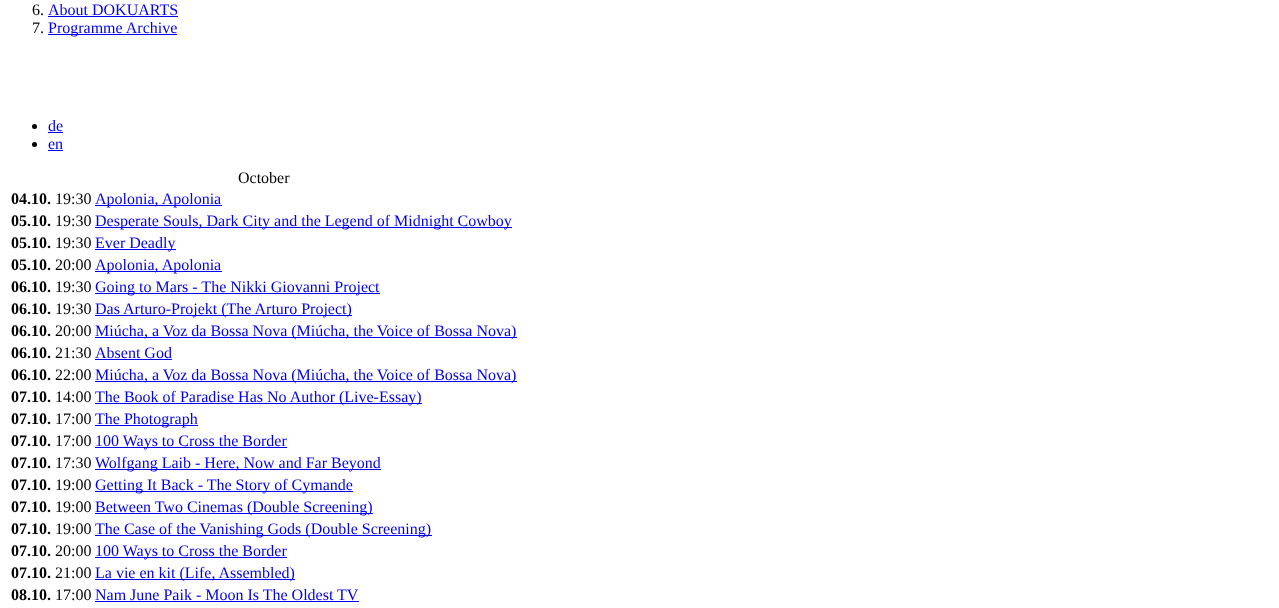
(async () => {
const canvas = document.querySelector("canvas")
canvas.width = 1279
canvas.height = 608
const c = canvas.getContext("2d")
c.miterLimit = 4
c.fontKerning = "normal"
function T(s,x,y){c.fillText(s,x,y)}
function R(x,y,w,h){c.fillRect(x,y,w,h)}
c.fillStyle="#fff"
R(0,0,1279,608)
c.font="16px Liberation Serif"
c.fillStyle="#000"
T("6.",32,15)
c.fillStyle="#00e"
T("About DOKUARTS",48,15)
R(48,16,130,1)
c.fillStyle="#000"
T("7.",32,33)
c.fillStyle="#00e"
R(48,34,129,1)
T("Programme Archive",48,33)
c.fillStyle="#000"
c.beginPath()
c.arc(34.5,126.5,2.5,0,7)
c.fill()
c.fillStyle="#00e"
T("de",48,131)
R(48,132,15,1)
c.fillStyle="#000"
c.beginPath()
c.arc(34.5,144.5,2.5,0,7)
c.fill()
c.fillStyle="#00e"
T("en",48,149)
R(48,150,15,1)
c.fillStyle="#000"
T("October",238,183)
c.font="bold 16px Liberation Serif"
T("04.10.",11,204)
c.font="16px Liberation Serif"
T("19:30",55,204)
c.fillStyle="#00e"
R(95,205,127,1)
T("Apolonia, Apolonia",95,204)
c.font="bold 16px Liberation Serif"
c.fillStyle="#000"
T("05.10.",11,226)
c.font="16px Liberation Serif"
T("19:30",55,226)
c.fillStyle="#00e"
R(95,227,417,1)
T("Desperate Souls, Dark City and the Legend of Midnight Cowboy",95,226)
c.font="bold 16px Liberation Serif"
c.fillStyle="#000"
T("05.10.",11,248)
c.font="16px Liberation Serif"
T("19:30",55,248)
c.fillStyle="#00e"
R(95,249,81,1)
T("Ever Deadly",95,248)
c.font="bold 16px Liberation Serif"
c.fillStyle="#000"
T("05.10.",11,270)
c.font="16px Liberation Serif"
T("20:00",55,270)
c.fillStyle="#00e"
R(95,271,127,1)
T("Apolonia, Apolonia",95,270)
c.font="bold 16px Liberation Serif"
c.fillStyle="#000"
T("06.10.",11,292)
c.font="16px Liberation Serif"
T("19:30",55,292)
c.fillStyle="#00e"
R(95,293,285,1)
T("Going to Mars - The Nikki Giovanni Project",95,292)
c.font="bold 16px Liberation Serif"
c.fillStyle="#000"
T("06.10.",11,314)
c.font="16px Liberation Serif"
T("19:30",55,314)
c.fillStyle="#00e"
R(95,315,257,1)
T("Das Arturo-Projekt (The Arturo Project)",95,314)
c.font="bold 16px Liberation Serif"
c.fillStyle="#000"
T("06.10.",11,336)
c.font="16px Liberation Serif"
T("20:00",55,336)
c.fillStyle="#00e"
R(95,337,422,1)
T("Miúcha, a Voz da Bossa Nova (Miúcha, the Voice of Bossa Nova)",95,336)
c.font="bold 16px Liberation Serif"
c.fillStyle="#000"
T("06.10.",11,358)
c.font="16px Liberation Serif"
T("21:30",55,358)
c.fillStyle="#00e"
T("Absent God",95,358)
R(95,359,77,1)
c.font="bold 16px Liberation Serif"
c.fillStyle="#000"
T("06.10.",11,380)
c.font="16px Liberation Serif"
T("22:00",55,380)
c.fillStyle="#00e"
R(95,381,422,1)
T("Miúcha, a Voz da Bossa Nova (Miúcha, the Voice of Bossa Nova)",95,380)
c.font="bold 16px Liberation Serif"
c.fillStyle="#000"
T("07.10.",11,402)
c.font="16px Liberation Serif"
T("14:00",55,402)
c.fillStyle="#00e"
R(95,403,327,1)
T("The Book of Paradise Has No Author (Live-Essay)",95,402)
c.font="bold 16px Liberation Serif"
c.fillStyle="#000"
T("07.10.",11,424)
c.font="16px Liberation Serif"
T("17:00",55,424)
c.fillStyle="#00e"
R(95,425,103,1)
T("The Photograph",95,424)
c.font="bold 16px Liberation Serif"
c.fillStyle="#000"
T("07.10.",11,446)
c.font="16px Liberation Serif"
T("17:00",55,446)
c.fillStyle="#00e"
R(95,447,192,1)
T("100 Ways to Cross the Border",95,446)
c.font="bold 16px Liberation Serif"
c.fillStyle="#000"
T("07.10.",11,468)
c.font="16px Liberation Serif"
T("17:30",55,468)
c.fillStyle="#00e"
R(95,469,286,1)
T("Wolfgang Laib - Here, Now and Far Beyond",95,468)
c.font="bold 16px Liberation Serif"
c.fillStyle="#000"
T("07.10.",11,490)
c.font="16px Liberation Serif"
T("19:00",55,490)
c.fillStyle="#00e"
R(95,491,258,1)
T("Getting It Back - The Story of Cymande",95,490)
c.font="bold 16px Liberation Serif"
c.fillStyle="#000"
T("07.10.",11,512)
c.font="16px Liberation Serif"
T("19:00",55,512)
c.fillStyle="#00e"
R(95,513,278,1)
T("Between Two Cinemas (Double Screening)",95,512)
c.font="bold 16px Liberation Serif"
c.fillStyle="#000"
T("07.10.",11,534)
c.font="16px Liberation Serif"
T("19:00",55,534)
c.fillStyle="#00e"
R(95,535,337,1)
T("The Case of the Vanishing Gods (Double Screening)",95,534)
c.font="bold 16px Liberation Serif"
c.fillStyle="#000"
T("07.10.",11,556)
c.font="16px Liberation Serif"
T("20:00",55,556)
c.fillStyle="#00e"
R(95,557,192,1)
T("100 Ways to Cross the Border",95,556)
c.font="bold 16px Liberation Serif"
c.fillStyle="#000"
T("07.10.",11,578)
c.font="16px Liberation Serif"
T("21:00",55,578)
c.fillStyle="#00e"
R(95,579,200,1)
T("La vie en kit (Life, Assembled)",95,578)
c.font="bold 16px Liberation Serif"
c.fillStyle="#000"
T("08.10.",11,600)
c.font="16px Liberation Serif"
T("17:00",55,600)
c.fillStyle="#00e"
T("Nam June Paik - Moon Is The Oldest TV",95,600)
R(95,601,264,1)
})()
